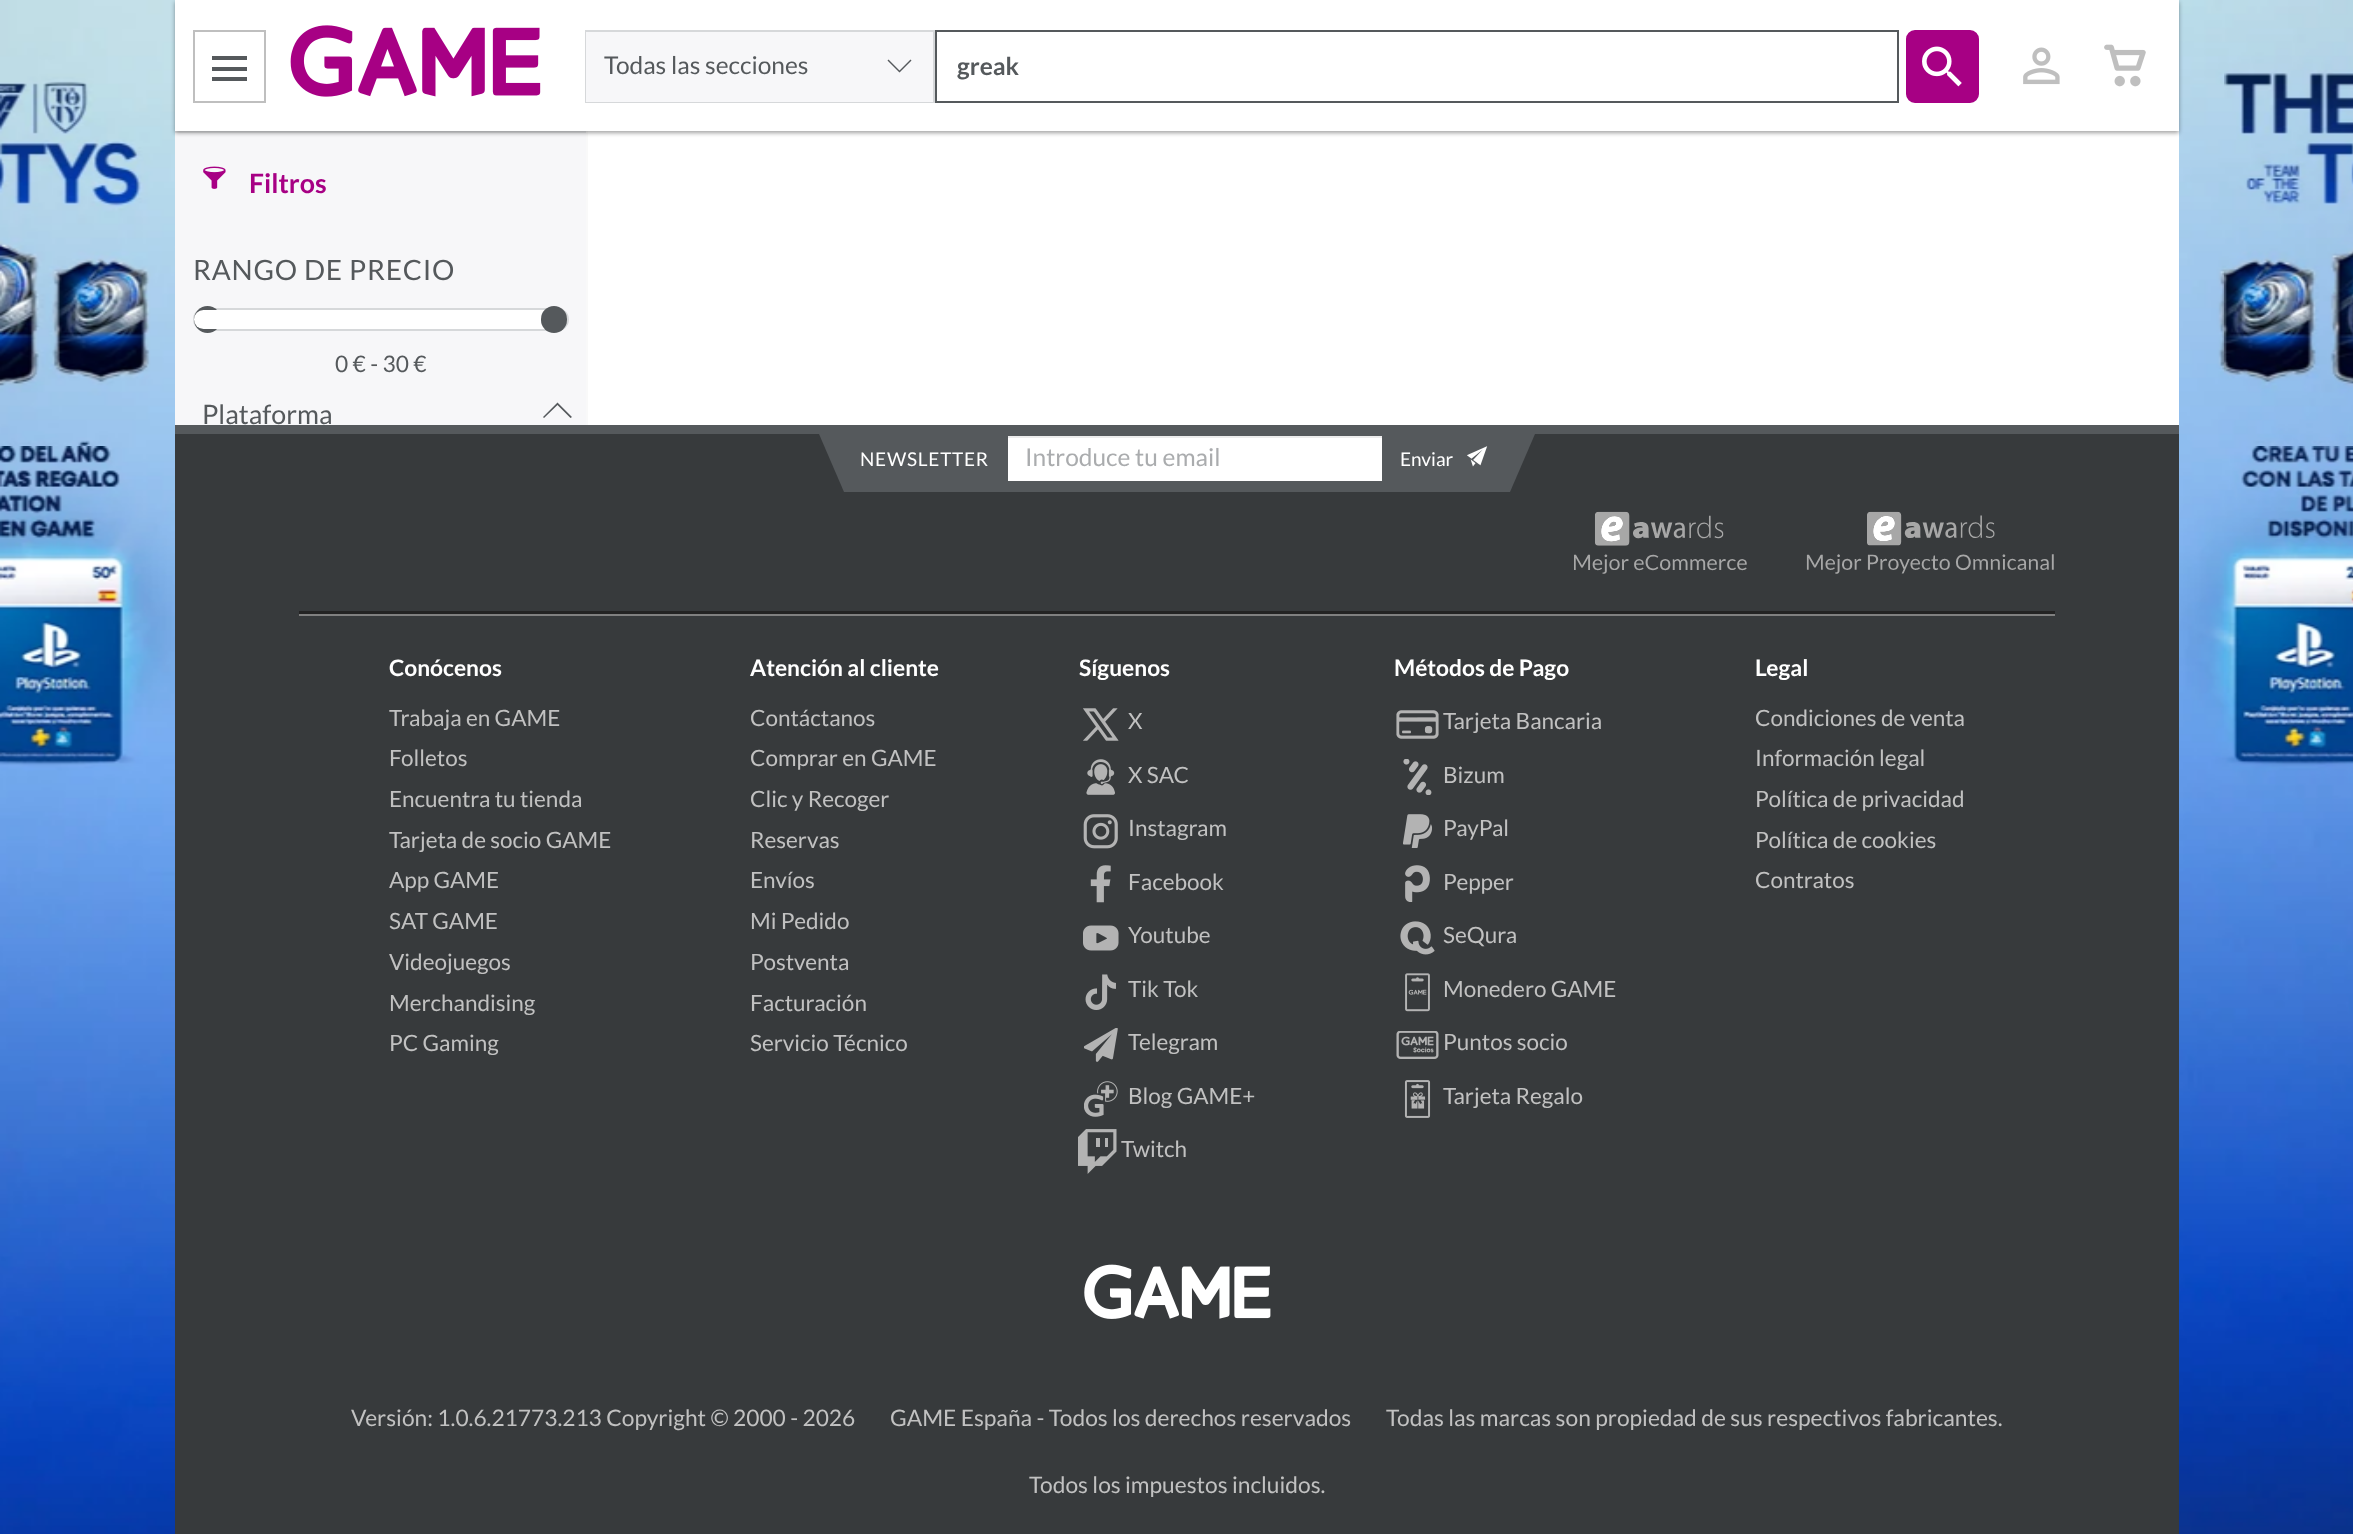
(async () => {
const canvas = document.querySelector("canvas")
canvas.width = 2353
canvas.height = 1534
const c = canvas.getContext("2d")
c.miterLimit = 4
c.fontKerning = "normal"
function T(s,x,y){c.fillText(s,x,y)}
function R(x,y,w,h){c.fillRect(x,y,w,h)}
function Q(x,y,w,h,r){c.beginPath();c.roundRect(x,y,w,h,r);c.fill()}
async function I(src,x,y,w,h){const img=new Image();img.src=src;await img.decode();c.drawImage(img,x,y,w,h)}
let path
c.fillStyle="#fff"
R(0,0,2353,1534)
await I("1.png",0,0,2353,1534)
c.fillStyle="#f7f7f9"
R(175,133,411,292)
c.fillStyle="#e7e8ea"
R(175,131,411,2)
c.fillStyle="#fff"
R(588,131,1591,294)
c.fillStyle="#f9f9f9"
R(586,131,2,294)
c.fillStyle="#0000005e"
c.filter="blur(2px)"
c.beginPath()
c.rect(175,2,2004,131)
c.fill()
c.filter="none"
c.fillStyle="#fff"
R(175,0,2004,131)
c.strokeStyle="#bfbfbf"
c.lineWidth=2
c.strokeRect(194,31,71,71)
c.fillStyle="#55595c"
R(212,56,35,4)
R(212,67,35,4)
R(212,77,35,4)
await I("2.png",290,25,251,72)
c.strokeStyle="#d6d8da"
c.strokeRect(586,31,348,71)
c.fillStyle="#f7f7f9"
R(586,32,347,70)
c.font="24.5px Lato"
c.fillStyle="#55595c"
T("Todas las secciones",604,74)
path = new Path2D("M899.5 72.5l-12-12l1-1l11 11l11-11l1 1z")
c.fill(path)
c.strokeStyle="#55595c"
c.strokeRect(936,31,962,71)
c.font="bold 24.5px Lato"
T("greak",957,75)
c.fillStyle="#a70084"
c.beginPath()
c.roundRect(1907,31,71,71,8)
c.fill()
c.strokeStyle="#a70084"
c.stroke()
await I("3.png",1922,46,40,41)
await I("4.png",2023,47,37,38)
await I("5.png",2104,44,42,43)
await I("6.png",203,166,23,23)
c.font="bold 26.75px Lato"
T("Filtros",249,193)
c.letterSpacing="0.75px"
c.font="28px Lato"
c.fillStyle="#55595c"
T("RANGO DE PRECIO",193,280)
c.beginPath()
c.roundRect(194,309,374,21,10.5)
c.strokeStyle="#d6d8da"
c.stroke()
c.beginPath()
c.arc(207.5,319.5,13.5,0,7)
c.fill()
c.fillStyle="#fff"
Q(194,310,373,19,9.5)
c.fillStyle="#55595c"
Q(541,306,26,27,13)
c.letterSpacing="0px"
c.font="22.75px Lato"
T("0 € - 30 €",335,372)
c.font="26.75px Lato"
T("Plataforma",202,424)
path = new Path2D("M557.5 402.5l14.5 14.5l-1.5 1l-13-13l-13.5 13l-1-1z")
c.fill(path)
c.fillStyle="#373a3c"
R(175,434,2004,1100)
c.fillStyle="#55595c"
R(175,425,2004,9)
R(844,434,666,58)
path = new Path2D("M819 434h25v58z")
c.fill(path)
c.letterSpacing="0.75px"
c.font="19px Lato"
c.fillStyle="#fff"
T("NEWSLETTER",860,466)
R(1008,438,374,43)
c.fillStyle="#ececec"
R(1008,436,375,2)
c.strokeStyle="#55595c"
c.strokeRect(1007,435,376,47)
c.letterSpacing="0px"
c.font="24.5px Lato"
c.fillStyle="#aaacae"
T("Introduce tu email",1025,466)
c.font="19px Lato"
c.fillStyle="#fff"
T("Enviar",1400,466)
await I("7.png",1467,446,21,21)
c.fillStyle="#55595c"
path = new Path2D("M1510 434h25l-25 58z")
c.fill(path)
await I("8.png",1574,511,173,63)
await I("9.png",1806,511,248,63)
c.fillStyle="#232323"
R(299,611,1756,3)
c.fillStyle="#808080"
R(299,614,1756,2)
c.font="bold 22.75px Lato"
c.fillStyle="#fff"
T("Conócenos",389,676)
c.font="22.5px Lato"
c.fillStyle="#c1c1c1"
T("Trabaja en GAME",389,726)
T("Folletos",389,766)
T("Encuentra tu tienda",389,807)
T("Tarjeta de socio GAME",389,848)
T("App GAME",389,888)
T("SAT GAME",389,929)
T("Videojuegos",389,970)
T("Merchandising",389,1011)
T("PC Gaming",389,1051)
c.font="bold 22.75px Lato"
c.fillStyle="#fff"
T("Atención al cliente",750,676)
c.font="22.5px Lato"
c.fillStyle="#c1c1c1"
T("Contáctanos",750,726)
T("Comprar en GAME",750,766)
T("Clic y Recoger",750,807)
T("Reservas",750,848)
T("Envíos",750,888)
T("Mi Pedido",750,929)
T("Postventa",750,970)
T("Facturación",750,1011)
T("Servicio Técnico",750,1051)
c.font="bold 22.75px Lato"
c.fillStyle="#fff"
T("Síguenos",1079,676)
await I("10.png",1083,708,36,33)
c.font="22.5px Lato"
c.fillStyle="#c1c1c1"
T("X",1128,729)
await I("11.png",1086,759,29,36)
T("X SAC",1128,783)
await I("12.png",1083,814,35,35)
T("Instagram",1128,836)
await I("13.png",1090,865,21,38)
T("Facebook",1128,890)
await I("14.png",1083,925,36,26)
T("Youtube",1128,943)
await I("15.png",1085,974,31,36)
T("Tik Tok",1128,997)
await I("16.png",1084,1028,34,34)
T("Telegram",1128,1050)
await I("17.png",1084,1081,34,36)
T("Blog GAME+",1128,1104)
await I("18.png",1078,1129,39,45)
T("Twitch",1121,1157)
c.font="bold 22.75px Lato"
c.fillStyle="#fff"
T("Métodos de Pago",1394,676)
await I("19.png",1396,710,43,29)
c.font="22.5px Lato"
c.fillStyle="#c1c1c1"
T("Tarjeta Bancaria",1443,729)
await I("20.png",1403,759,29,36)
T("Bizum",1443,783)
await I("21.png",1403,814,29,34)
T("PayPal",1443,836)
await I("22.png",1405,865,25,37)
T("Pepper",1443,890)
await I("23.png",1400,921,35,34)
T("SeQura",1443,943)
await I("24.png",1405,973,25,39)
T("Monedero GAME",1443,997)
await I("25.png",1396,1031,43,28)
T("Puntos socio",1443,1050)
await I("26.png",1404,1080,27,38)
T("Tarjeta Regalo",1443,1104)
c.font="bold 22.75px Lato"
c.fillStyle="#fff"
T("Legal",1755,676)
c.font="22.5px Lato"
c.fillStyle="#c1c1c1"
T("Condiciones de venta",1755,726)
T("Información legal",1755,766)
T("Política de privacidad",1755,807)
T("Política de cookies",1755,848)
T("Contratos",1755,888)
await I("27.png",1084,1264,187,55)
c.font="22.75px Lato"
T("Versión: 1.0.6.21773.213 Copyright © 2000 - 2026",351,1426)
T("GAME España - Todos los derechos reservados",890,1426)
T("Todas las marcas son propiedad de sus respectivos fabricantes.",1386,1426)
T("Todos los impuestos incluidos.",1029,1493)
})()
